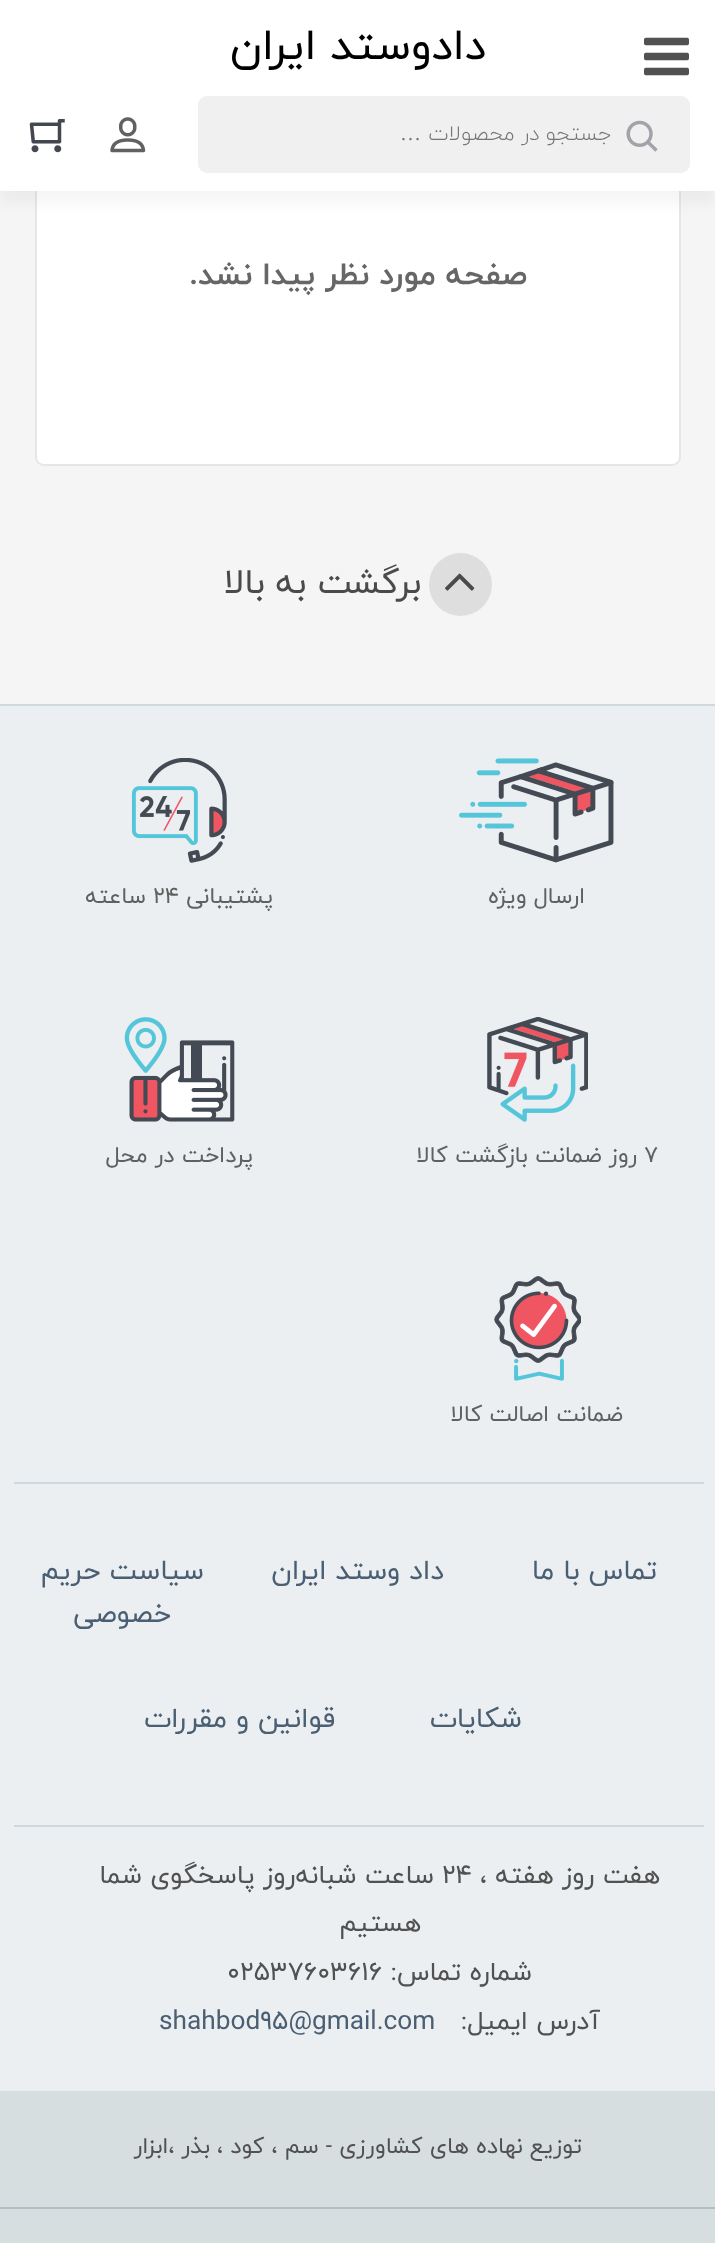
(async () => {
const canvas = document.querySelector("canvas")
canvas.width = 715
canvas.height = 2243
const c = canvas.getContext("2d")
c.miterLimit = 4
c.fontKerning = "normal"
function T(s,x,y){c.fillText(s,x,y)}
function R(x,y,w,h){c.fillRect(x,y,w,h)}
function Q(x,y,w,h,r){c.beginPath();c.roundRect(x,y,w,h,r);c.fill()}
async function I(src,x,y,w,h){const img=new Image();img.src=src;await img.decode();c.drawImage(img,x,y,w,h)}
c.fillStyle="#f5f5f5"
R(0,0,715,2243)
c.fillStyle="#fff"
c.beginPath()
c.roundRect(36,117,644,348,8)
c.fill()
c.strokeStyle="#e6e6e6"
c.lineWidth=2
c.stroke()
c.fillStyle="#0000000a"
c.filter="blur(7px)"
c.beginPath()
c.rect(0,12,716,191)
c.fill()
c.filter="none"
c.fillStyle="#fff"
R(0,0,715,191)
await I("1.png",644,37,45,39)
c.direction="rtl"
c.font="43.75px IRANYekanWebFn"
c.fillStyle="#000"
T("دادوستد ایران",486,59)
c.fillStyle="#f0f0f1"
Q(198,96,492,77,9)
await I("2.png",626,120,32,32)
c.font="300 21px IRANYekanWebFn"
c.fillStyle="#757575"
T("جستجو در محصولات",611,140)
c.font="21px Liberation Serif"
T("…",421,140)
await I("3.png",110,117,36,36)
await I("4.png",29,119,36,34)
c.font="bold 31.5px IRANYekanWebFn"
c.fillStyle="#666"
T("صفحه مورد نظر پیدا نشد.",527,284)
c.fillStyle="#dedede"
c.beginPath()
c.arc(460.5,584.5,31.5,0,7)
c.fill()
await I("5.png",445,573,30,18)
c.font="35px IRANYekanWebFn"
c.fillStyle="#4a4a4a"
T("برگشت به بالا",421,593)
c.fillStyle="#eceff1"
R(0,706,715,1385)
c.fillStyle="#cfd8dc"
R(0,704,715,2)
await I("6.png",459,758,155,105)
c.font="22.75px IRANYekanWebFn"
c.fillStyle="#606060"
T("ارسال ویژه",585,903)
await I("7.png",131,758,96,105)
T("پشتیبانی",273,903)
c.direction="ltr"
T("۲۴",153,903)
c.direction="rtl"
T("ساعته",146,903)
await I("8.png",487,1017,101,105)
c.direction="ltr"
T("۷",644,1162)
c.direction="rtl"
T("روز ضمانت بازگشت کالا",637,1162)
await I("9.png",124,1017,111,105)
T("پرداخت در محل",253,1162)
await I("10.png",494,1276,87,105)
T("ضمانت اصالت کالا",623,1421)
c.fillStyle="#cfd8dc"
R(14,1482,690,2)
c.font="28px IRANYekanWebFn"
c.fillStyle="#4a5f73"
T("تماس با ما",657,1579)
T("داد وستد ایران",444,1579)
T("سیاست حریم",204,1579)
T("خصوصی",171,1622)
T("شکایات",522,1727)
T("قوانین و مقررات",335,1727)
c.fillStyle="#cfd8dc"
R(14,1825,690,2)
c.font="26.25px IRANYekanWebFn"
c.fillStyle="#515151"
T("هفت روز هفته ،",660,1883)
c.direction="ltr"
T("۲۴",442,1883)
c.direction="rtl"
T("ساعت شبانه‌روز پاسخگوی شما",434,1883)
T("هستیم",421,1931)
T("شماره تماس:",532,1980)
c.direction="ltr"
T("02537603616",227,1980)
c.direction="rtl"
T("آدرس ایمیل:",600,2029)
c.direction="ltr"
c.fillStyle="#4a5f73"
T("shahbod95@gmail.com",159,2029)
c.fillStyle="#d7dee0"
R(0,2091,715,152)
c.direction="rtl"
c.font="22.75px IRANYekanWebFn"
c.fillStyle="#515151"
T("توزیع نهاده های کشاورزی",582,2153)
T("- سم ، کود ، بذر ،ابزار",332,2153)
c.fillStyle="#b0bec5"
R(0,2207,715,2)
})()
